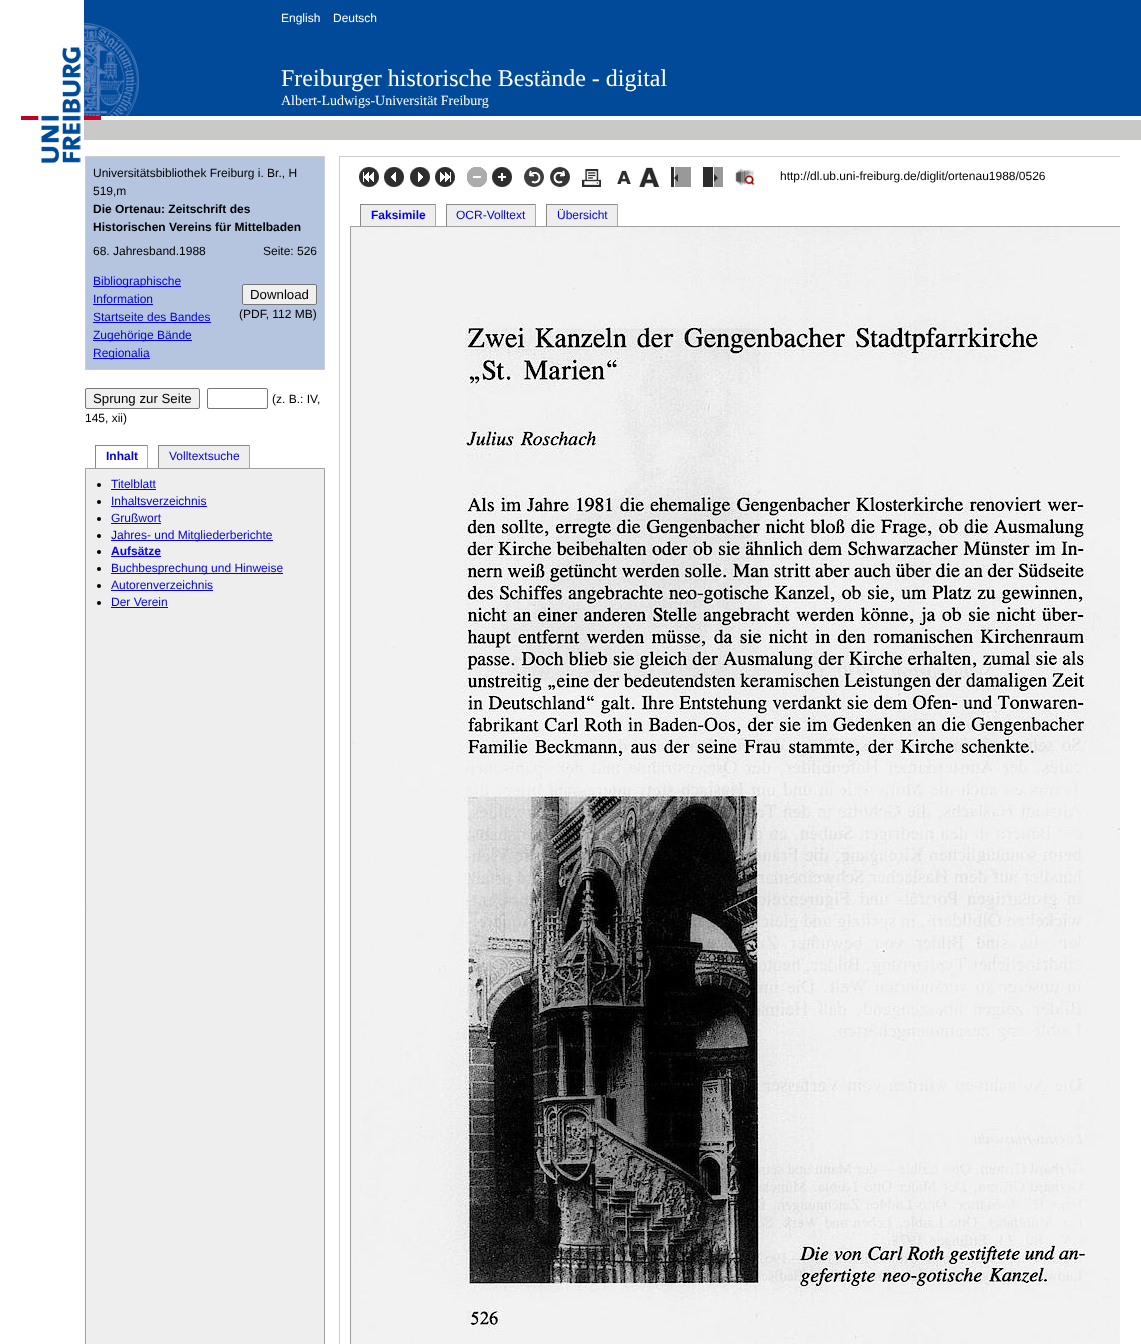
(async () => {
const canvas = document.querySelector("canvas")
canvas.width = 1141
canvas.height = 1344
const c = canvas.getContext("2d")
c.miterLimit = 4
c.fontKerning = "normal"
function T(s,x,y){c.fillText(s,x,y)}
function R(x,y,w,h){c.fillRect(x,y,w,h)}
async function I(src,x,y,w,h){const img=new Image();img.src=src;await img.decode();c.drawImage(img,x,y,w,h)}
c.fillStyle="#fff"
R(0,0,1141,1344)
await I("1.png",84,0,1057,140)
await I("2.png",21,47,60,116)
await I("3.png",84,23,55,97)
c.font="12px Liberation Sans"
T("English",281,22)
T("Deutsch",333,22)
c.font="24px Liberation Serif"
T("Freiburger historische Bestände - digital",281,86)
c.font="14px Liberation Serif"
T("Albert-Ludwigs-Universität Freiburg",281,105)
c.fillStyle="#b6c5df"
c.beginPath()
c.rect(85.5,156.5,239,213)
c.fill()
c.strokeStyle="#ccc"
c.stroke()
c.font="12px Liberation Sans"
c.fillStyle="#000"
T("Universitätsbibliothek Freiburg i. Br., H",93,177)
T("519,m",93,195)
c.font="bold 12px Liberation Sans"
T("Die Ortenau: Zeitschrift des",93,213)
T("Historischen Vereins für Mittelbaden",93,231)
c.font="12px Liberation Sans"
T("68. Jahresband.1988",93,255)
T("Seite: 526",263,255)
c.fillStyle="#00e"
R(93,286,88,1)
T("Bibliographische",93,285)
T("Information",93,303)
R(93,304,60,1)
c.fillStyle="#efefef"
c.beginPath()
c.roundRect(242.5,284.5,74,20,1.5)
c.fill()
c.strokeStyle="#767676"
c.stroke()
c.font="13.25px Liberation Sans"
c.fillStyle="#000"
T("Download",250,299)
c.font="12px Liberation Sans"
T("(PDF, 112 MB)",239,318)
c.fillStyle="#00e"
T("Startseite des Bandes",93,321)
R(93,322,118,1)
R(93,340,99,1)
T("Zugehörige Bände",93,339)
R(93,358,57,1)
T("Regionalia",93,357)
c.fillStyle="#efefef"
c.beginPath()
c.roundRect(85.5,388.5,114,20,1.5)
c.fill()
c.stroke()
c.font="13.25px Liberation Sans"
c.fillStyle="#000"
T("Sprung zur Seite",93,403)
c.beginPath()
c.roundRect(207.5,388.5,60,20,1.5)
c.stroke()
c.font="12px Liberation Sans"
T("(z. B.: IV,",272,403)
T("145, xii)",85,422)
c.fillStyle="#888"
R(95,445,53,1)
c.fillStyle="#aaa"
R(147,445,1,23)
c.fillStyle="#888"
R(95,445,1,23)
c.font="bold 12px Liberation Sans"
c.fillStyle="#00e"
T("Inhalt",106,460)
c.fillStyle="#eee"
R(159,446,90,22)
c.fillStyle="#888"
R(158,445,92,1)
c.fillStyle="#aaa"
R(249,445,1,23)
c.fillStyle="#888"
R(158,445,1,23)
c.font="12px Liberation Sans"
c.fillStyle="#00e"
T("Volltextsuche",169,460)
c.fillStyle="#eee"
c.beginPath()
c.rect(85.5,468.5,239,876)
c.fill()
c.strokeStyle="#a0a0a0"
c.stroke()
c.fillStyle="#000"
c.beginPath()
c.arc(99,485,2,0,7)
c.fill()
c.fillStyle="#00e"
T("Titelblatt",111,488)
R(111,489,45,1)
c.fillStyle="#000"
c.beginPath()
c.arc(99,502,2,0,7)
c.fill()
c.fillStyle="#00e"
T("Inhaltsverzeichnis",111,505)
R(111,506,96,1)
c.fillStyle="#000"
c.beginPath()
c.arc(99,519,2,0,7)
c.fill()
c.fillStyle="#00e"
T("Grußwort",111,522)
R(111,523,50,1)
c.fillStyle="#000"
c.beginPath()
c.arc(99,536,2,0,7)
c.fill()
c.fillStyle="#00e"
R(111,540,162,1)
T("Jahres- und Mitgliederberichte",111,539)
c.fillStyle="#000"
c.beginPath()
c.arc(99,552,2,0,7)
c.fill()
c.font="bold 12px Liberation Sans"
c.fillStyle="#00e"
T("Aufsätze",111,555)
R(111,556,50,1)
c.fillStyle="#000"
c.beginPath()
c.arc(99,569,2,0,7)
c.fill()
c.fillStyle="#00e"
R(111,573,172,1)
c.font="12px Liberation Sans"
T("Buchbesprechung und Hinweise",111,572)
c.fillStyle="#000"
c.beginPath()
c.arc(99,586,2,0,7)
c.fill()
c.fillStyle="#00e"
T("Autorenverzeichnis",111,589)
R(111,590,102,1)
c.fillStyle="#000"
c.beginPath()
c.arc(99,603,2,0,7)
c.fill()
c.fillStyle="#00e"
T("Der Verein",111,606)
R(111,607,57,1)
c.fillStyle="#ccc"
R(339,156,781,1)
R(339,156,1,1188)
await I("4.png",359,167,20,20)
await I("5.png",384,167,20,20)
await I("6.png",410,167,20,20)
await I("7.png",435,167,20,20)
await I("8.png",467,167,20,20)
await I("9.png",492,167,20,20)
await I("10.png",524,167,20,20)
await I("11.png",550,167,20,20)
await I("12.png",582,169,19,18)
await I("13.png",617,170,14,14)
await I("14.png",639,167,20,20)
await I("15.png",671,167,20,20)
await I("16.png",703,167,20,20)
await I("17.png",735,168,20,18)
c.fillStyle="#000"
T("http://dl.ub.uni-freiburg.de/diglit/ortenau1988/0526",780,180)
c.fillStyle="#eee"
R(361,205,74,21)
c.fillStyle="#888"
R(360,204,76,1)
c.fillStyle="#aaa"
R(435,204,1,22)
c.fillStyle="#888"
R(360,204,1,22)
c.font="bold 12px Liberation Sans"
c.fillStyle="#00e"
T("Faksimile",371,219)
c.fillStyle="#eee"
R(447,205,88,21)
c.fillStyle="#888"
R(446,204,90,1)
c.fillStyle="#aaa"
R(535,204,1,22)
c.fillStyle="#888"
R(446,204,1,22)
c.font="12px Liberation Sans"
c.fillStyle="#00e"
T("OCR-Volltext",456,219)
c.fillStyle="#eee"
R(547,205,70,21)
c.fillStyle="#888"
R(546,204,72,1)
c.fillStyle="#aaa"
R(617,204,1,22)
c.fillStyle="#888"
R(546,204,1,22)
c.fillStyle="#00e"
T("Übersicht",557,219)
c.save()
c.beginPath()
c.rect(85,156,1035,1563)
c.clip()
c.strokeRect(350.5,226.5,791,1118)
c.restore()
await I("18.png",351,227,769,1117)
})()
